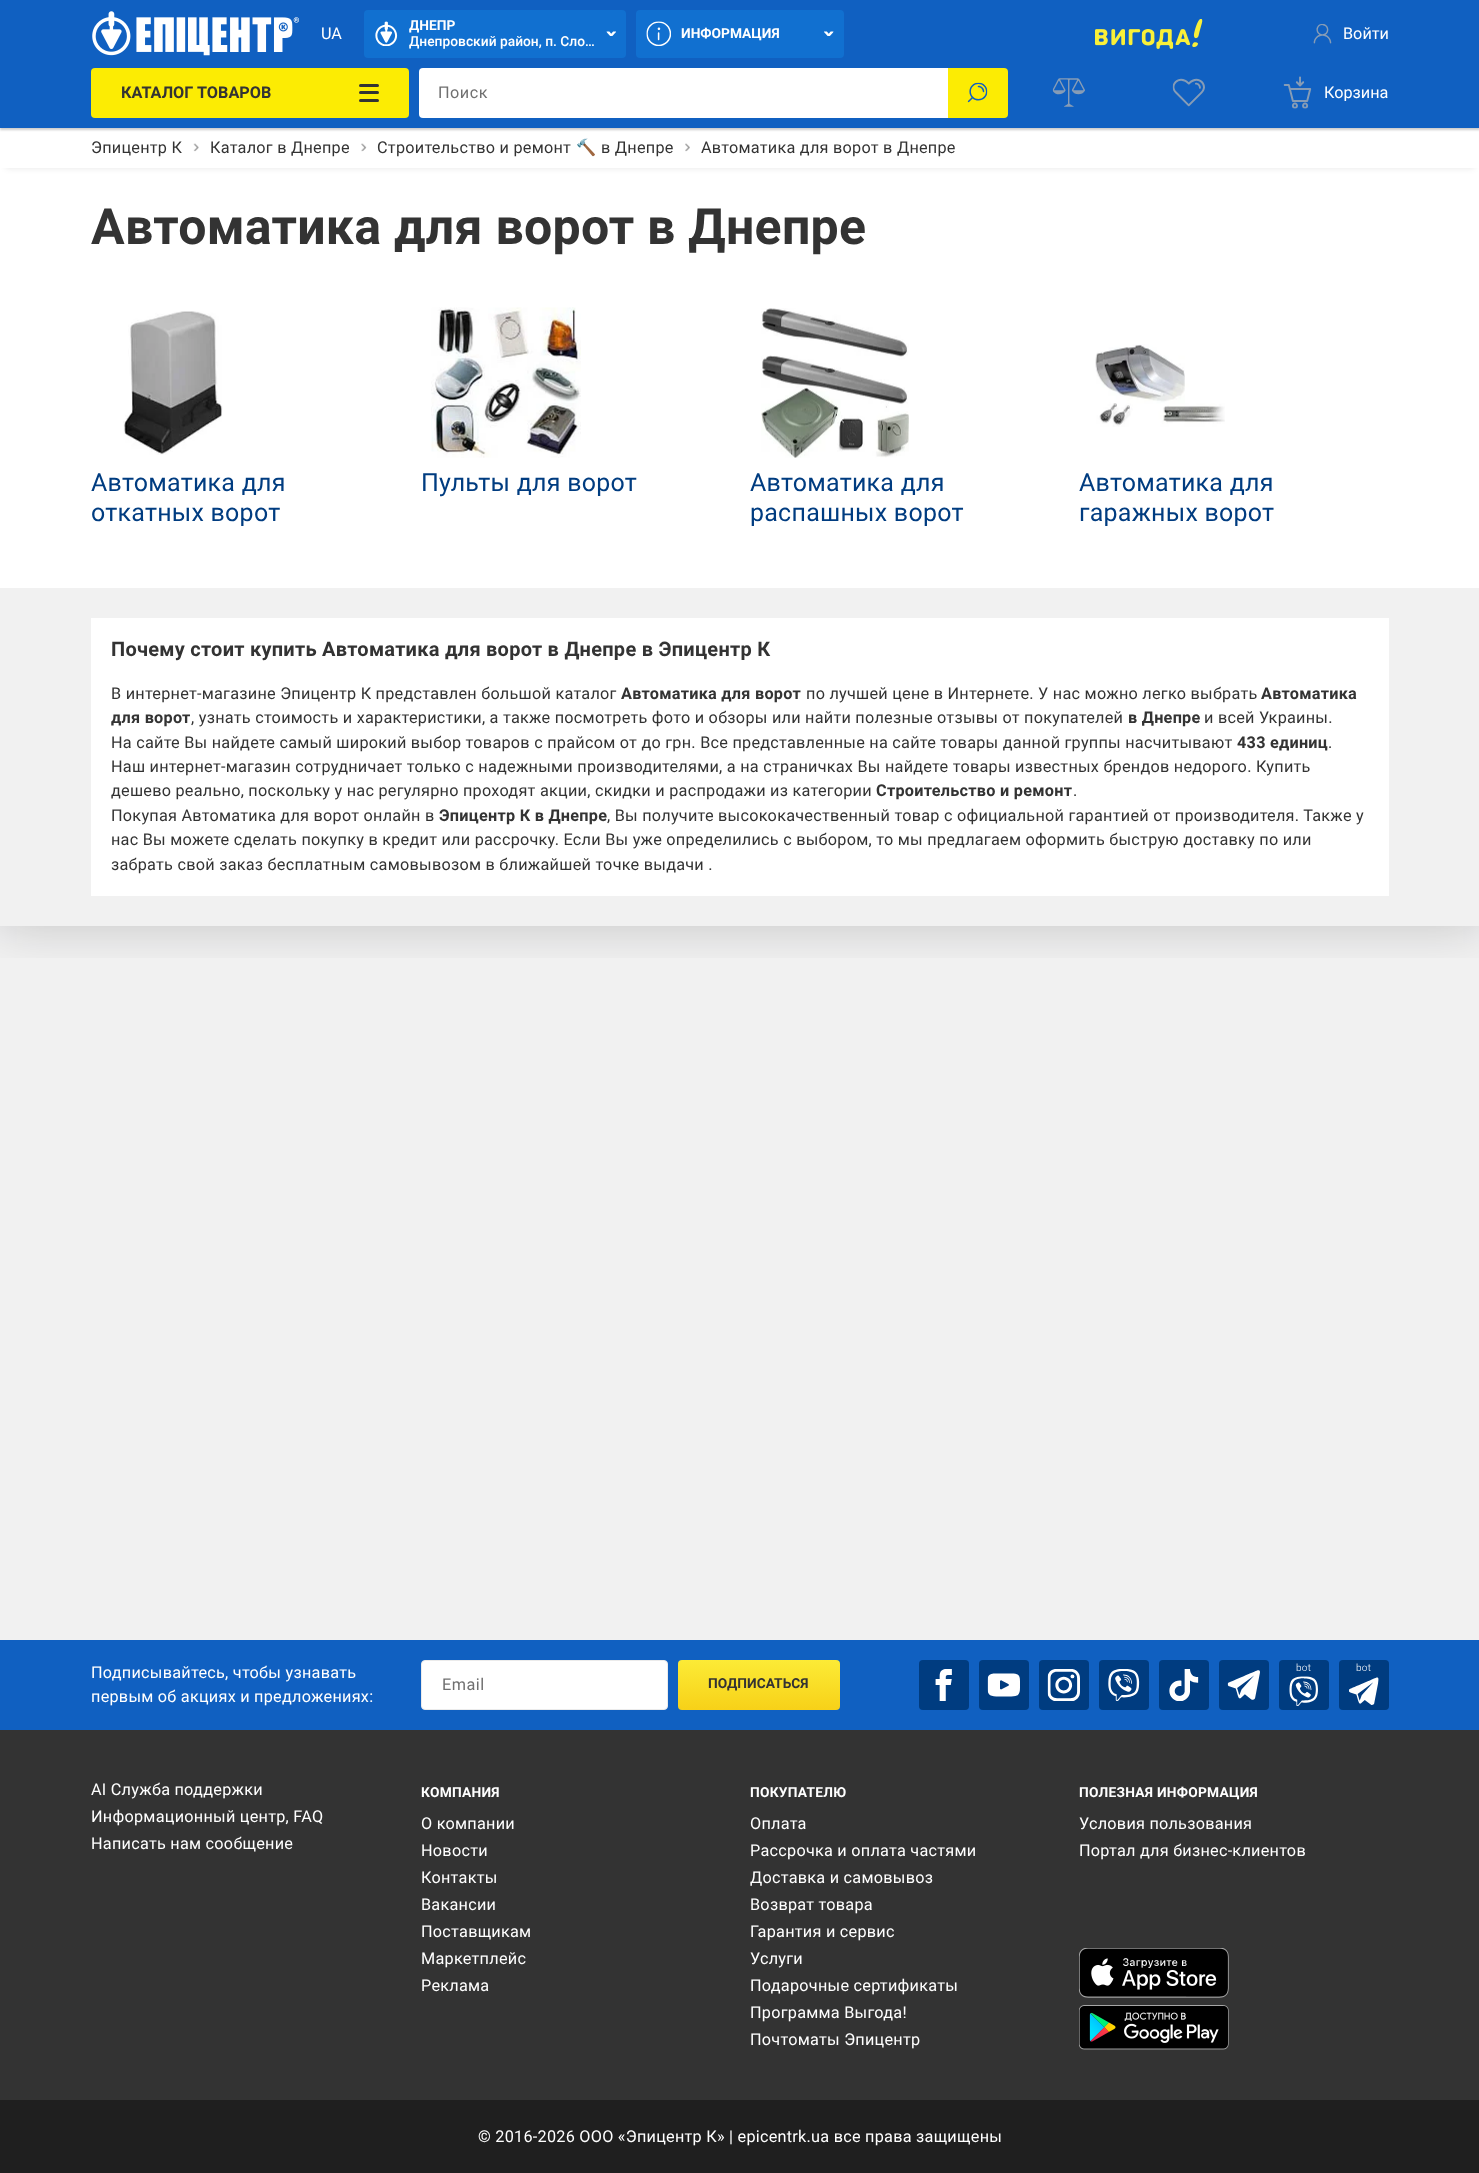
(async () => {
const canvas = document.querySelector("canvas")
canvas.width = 1479
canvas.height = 2173
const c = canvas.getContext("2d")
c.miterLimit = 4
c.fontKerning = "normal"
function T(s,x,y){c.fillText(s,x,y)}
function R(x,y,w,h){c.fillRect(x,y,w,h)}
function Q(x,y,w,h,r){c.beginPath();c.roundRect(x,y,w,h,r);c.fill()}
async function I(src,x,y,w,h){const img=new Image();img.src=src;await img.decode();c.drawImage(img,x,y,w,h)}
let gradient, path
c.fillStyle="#f1f1f1"
R(0,0,1479,2173)
c.save()
c.beginPath()
c.rect(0,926,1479,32)
c.clip()
c.fillStyle="#0c0c0d33"
c.filter="blur(25px)"
c.beginPath()
c.rect(0,128,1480,798)
c.fill()
c.filter="none"
c.restore()
c.fillStyle="#1060c1"
R(0,0,1479,128)
await I("1.png",92,11,207,45)
c.fillStyle="#1170d0"
Q(364,10,262,48,4)
Q(636,10,208,48,4)
await I("6.png",1095,19,108,30)
c.fillStyle="#fcec03"
Q(91,68,318,50,4)
c.fillStyle="#333"
Q(359,91,20,3,1.5)
Q(359,84,20,3,1.5)
Q(359,99,20,3,1.5)
c.fillStyle="#fff"
c.beginPath()
c.roundRect(419,68,529,50,[4,0,0,4])
c.fill()
c.fillStyle="#fcec03"
c.beginPath()
c.roundRect(948,68,60,50,[0,4,4,0])
c.fill()
c.fillStyle="#fff"
R(0,168,1479,420)
c.fillStyle="#0000001a"
c.filter="blur(3px)"
c.beginPath()
c.rect(6,140,1468,28)
c.fill()
c.filter="none"
c.fillStyle="#fff"
R(0,128,1479,40)
c.save()
path = new Path2D("M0 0h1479v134h-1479zm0 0h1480v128h-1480z")
c.clip(path,"evenodd")
c.fillStyle="#00000033"
c.filter="blur(1px)"
c.beginPath()
c.rect(0,3,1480,127)
c.fill()
c.filter="none"
c.restore()
c.font="16.25px Roboto"
T("UA",321,39)
await I("2.png",375,21,23,25)
c.save()
c.beginPath()
c.rect(409,18,187,16)
c.clip()
c.font="bold 13.75px Roboto"
T("ДНЕПР",409,30)
c.restore()
c.font="500 13.75px Roboto"
T("Днепровский район, п. Сло…",409,46)
await I("3.png",606,31,10,5)
await I("4.png",646,21,25,25)
c.font="bold 13.75px Roboto"
T("ИНФОРМАЦИЯ",681,38)
await I("5.png",824,31,10,5)
await I("7.png",1313,24,19,20)
c.font="16.25px Roboto"
T("Войти",1343,39)
c.font="bold 16.25px Roboto"
c.fillStyle="#333"
T("КАТАЛОГ ТОВАРОВ",121,98)
c.letterSpacing="0.5px"
c.font="16.25px Roboto"
c.fillStyle="#707070"
T("Поиск",438,98)
await I("8.png",967,82,21,21)
await I("9.png",1052,78,33,29)
await I("10.png",1172,78,33,29)
await I("11.png",1283,76,29,33)
c.save()
c.beginPath()
c.rect(1324,85,65,16)
c.clip()
c.letterSpacing="0px"
c.fillStyle="#fff"
T("Корзина",1324,98)
c.restore()
c.letterSpacing="0.25px"
c.fillStyle="#333"
T("Эпицентр К",91,153)
await I("12.png",193,143,6,9)
T("Каталог в Днепре",210,153)
await I("13.png",361,143,6,9)
T("Строительство и ремонт",377,153)
c.font="16.25px Noto Color Emoji"
T("🔨",576,153)
c.font="16.25px Roboto"
T("в Днепре",601,153)
await I("14.png",685,143,5,9)
T("Автоматика для ворот в Днепре",701,153)
c.font="bold 50px Roboto"
T("Автоматика для ворот в Днепре",91,244)
await I("15.png",123,311,100,144)
c.font="25px Roboto"
c.fillStyle="#003c80"
T("Автоматика для",91,491)
T("откатных ворот",91,521)
await I("16.png",431,307,150,151)
T("Пульты для ворот",421,491)
await I("17.png",761,308,148,150)
T("Автоматика для",750,491)
T("распашных ворот",750,521)
await I("18.png",1095,344,130,83)
T("Автоматика для",1079,491)
T("гаражных ворот",1079,521)
c.fillStyle="#fff"
R(91,618,1298,278)
c.font="bold 20px Roboto"
c.fillStyle="#333"
T("Почему стоит купить Автоматика для ворот в Днепре в Эпицентр К",111,656)
c.font="16.25px Roboto"
T("В интернет-магазине Эпицентр К представлен большой каталог",111,699)
c.font="bold 16.25px Roboto"
T("Автоматика для ворот",621,699)
c.font="16.25px Roboto"
T("по лучшей цене в Интернете. У нас можно легко выбрать",806,699)
c.font="bold 16.25px Roboto"
T("Автоматика",1261,699)
T("для ворот",111,723)
c.font="16.25px Roboto"
T(", узнать стоимость и характеристики, а также посмотреть фото и обзоры или найти полезные отзывы от покупателей",191,723)
c.font="bold 16.25px Roboto"
T("в Днепре",1128,723)
c.font="16.25px Roboto"
T("и всей Украины.",1204,723)
T("На сайте Вы найдете самый широкий выбор товаров с прайсом от до грн. Все представленные на сайте товары данной группы насчитывают",111,748)
c.font="bold 16.25px Roboto"
T("433 единиц",1237,748)
c.font="16.25px Roboto"
T(".",1328,748)
T("Наш интернет-магазин сотрудничает только с надежными производителями, а на страничках Вы найдете товары известных брендов недорого. Купить",111,772)
T("дешево реально, поскольку у нас регулярно проходят акции, скидки и распродажи из категории",111,796)
c.font="bold 16.25px Roboto"
T("Строительство и ремонт",876,796)
c.font="16.25px Roboto"
T(".",1073,796)
T("Покупая Автоматика для ворот онлайн в",111,821)
c.font="bold 16.25px Roboto"
T("Эпицентр К в Днепре",439,821)
c.font="16.25px Roboto"
T(", Вы получите высококачественный товар с официальной гарантией от производителя. Также у",607,821)
T("нас Вы можете сделать покупку в кредит или рассрочку. Если Вы уже определились с выбором, то мы предлагаем оформить быструю доставку по или",111,845)
T("забрать свой заказ бесплатным самовывозом в ближайшей точке выдачи .",111,870)
c.fillStyle="#1060c1"
R(0,1640,1479,90)
c.fillStyle="#fff"
T("Подписывайтесь, чтобы узнавать",91,1678)
T("первым об акцияx и предложениях:",91,1702)
c.beginPath()
c.roundRect(421.5,1660.5,246,49,3.5)
c.fill()
c.strokeStyle="#ebebeb"
c.stroke()
c.letterSpacing="0.5px"
c.fillStyle="#707070"
T("Email",442,1690)
gradient = c.createLinearGradient(759,1660,759,1710)
gradient.addColorStop(0,"#fceb36")
gradient.addColorStop(1,"#f7d118")
c.fillStyle = gradient
Q(678,1660,162,50,4)
c.letterSpacing="0px"
c.font="bold 13.75px Roboto"
c.fillStyle="#333"
T("ПОДПИСАТЬСЯ",708,1688)
c.fillStyle="#003c80"
Q(919,1660,50,50,4)
await I("19.png",935,1669,17,32)
Q(979,1660,50,50,4)
await I("20.png",987,1673,33,24)
Q(1039,1660,50,50,4)
await I("21.png",1047,1669,33,32)
Q(1099,1660,50,50,4)
await I("22.png",1108,1669,32,32)
Q(1159,1660,50,50,4)
await I("23.png",1169,1669,30,32)
Q(1219,1660,50,50,4)
await I("24.png",1227,1670,33,30)
Q(1279,1660,50,50,4)
c.letterSpacing="0.25px"
c.font="300 10px Roboto"
c.fillStyle="#fff"
T("bot",1296,1671)
await I("25.png",1289,1676,29,30)
c.fillStyle="#003c80"
Q(1339,1660,50,50,4)
c.fillStyle="#fff"
T("bot",1356,1671)
await I("26.png",1349,1677,30,28)
c.fillStyle="#333"
R(0,1730,1479,370)
c.font="16.25px Roboto"
c.fillStyle="#fff"
T("AI Служба поддержки",91,1795)
T("Информационный центр, FAQ",91,1822)
T("Написать нам сообщение",91,1849)
c.font="bold 13.75px Roboto"
T("КОМПАНИЯ",421,1797)
c.font="16.25px Roboto"
T("О компании",421,1829)
T("Новости",421,1856)
T("Контакты",421,1883)
T("Вакансии",421,1910)
T("Поставщикам",421,1937)
T("Маркетплейс",421,1964)
T("Реклама",421,1991)
c.font="bold 13.75px Roboto"
T("ПОКУПАТЕЛЮ",750,1797)
c.font="16.25px Roboto"
T("Оплата",750,1829)
T("Рассрочка и оплата частями",750,1856)
T("Доставка и самовывоз",750,1883)
T("Возврат товара",750,1910)
T("Гарантия и сервис",750,1937)
T("Услуги",750,1964)
T("Подарочные сертификаты",750,1991)
T("Программа Выгода!",750,2018)
T("Почтоматы Эпицентр",750,2045)
c.font="bold 13.75px Roboto"
T("ПОЛЕЗНАЯ ИНФОРМАЦИЯ",1079,1797)
c.font="16.25px Roboto"
T("Условия пользования",1079,1829)
T("Портал для бизнес-клиентов",1079,1856)
await I("27.png",1079,1948,150,50)
await I("28.png",1079,2005,150,45)
c.fillStyle="#1f1f1f"
R(0,2100,1479,73)
c.fillStyle="#fff"
T("© 2016-2026 ООО «Эпицентр К» | epicentrk.ua все права защищены",478,2142)
})()
